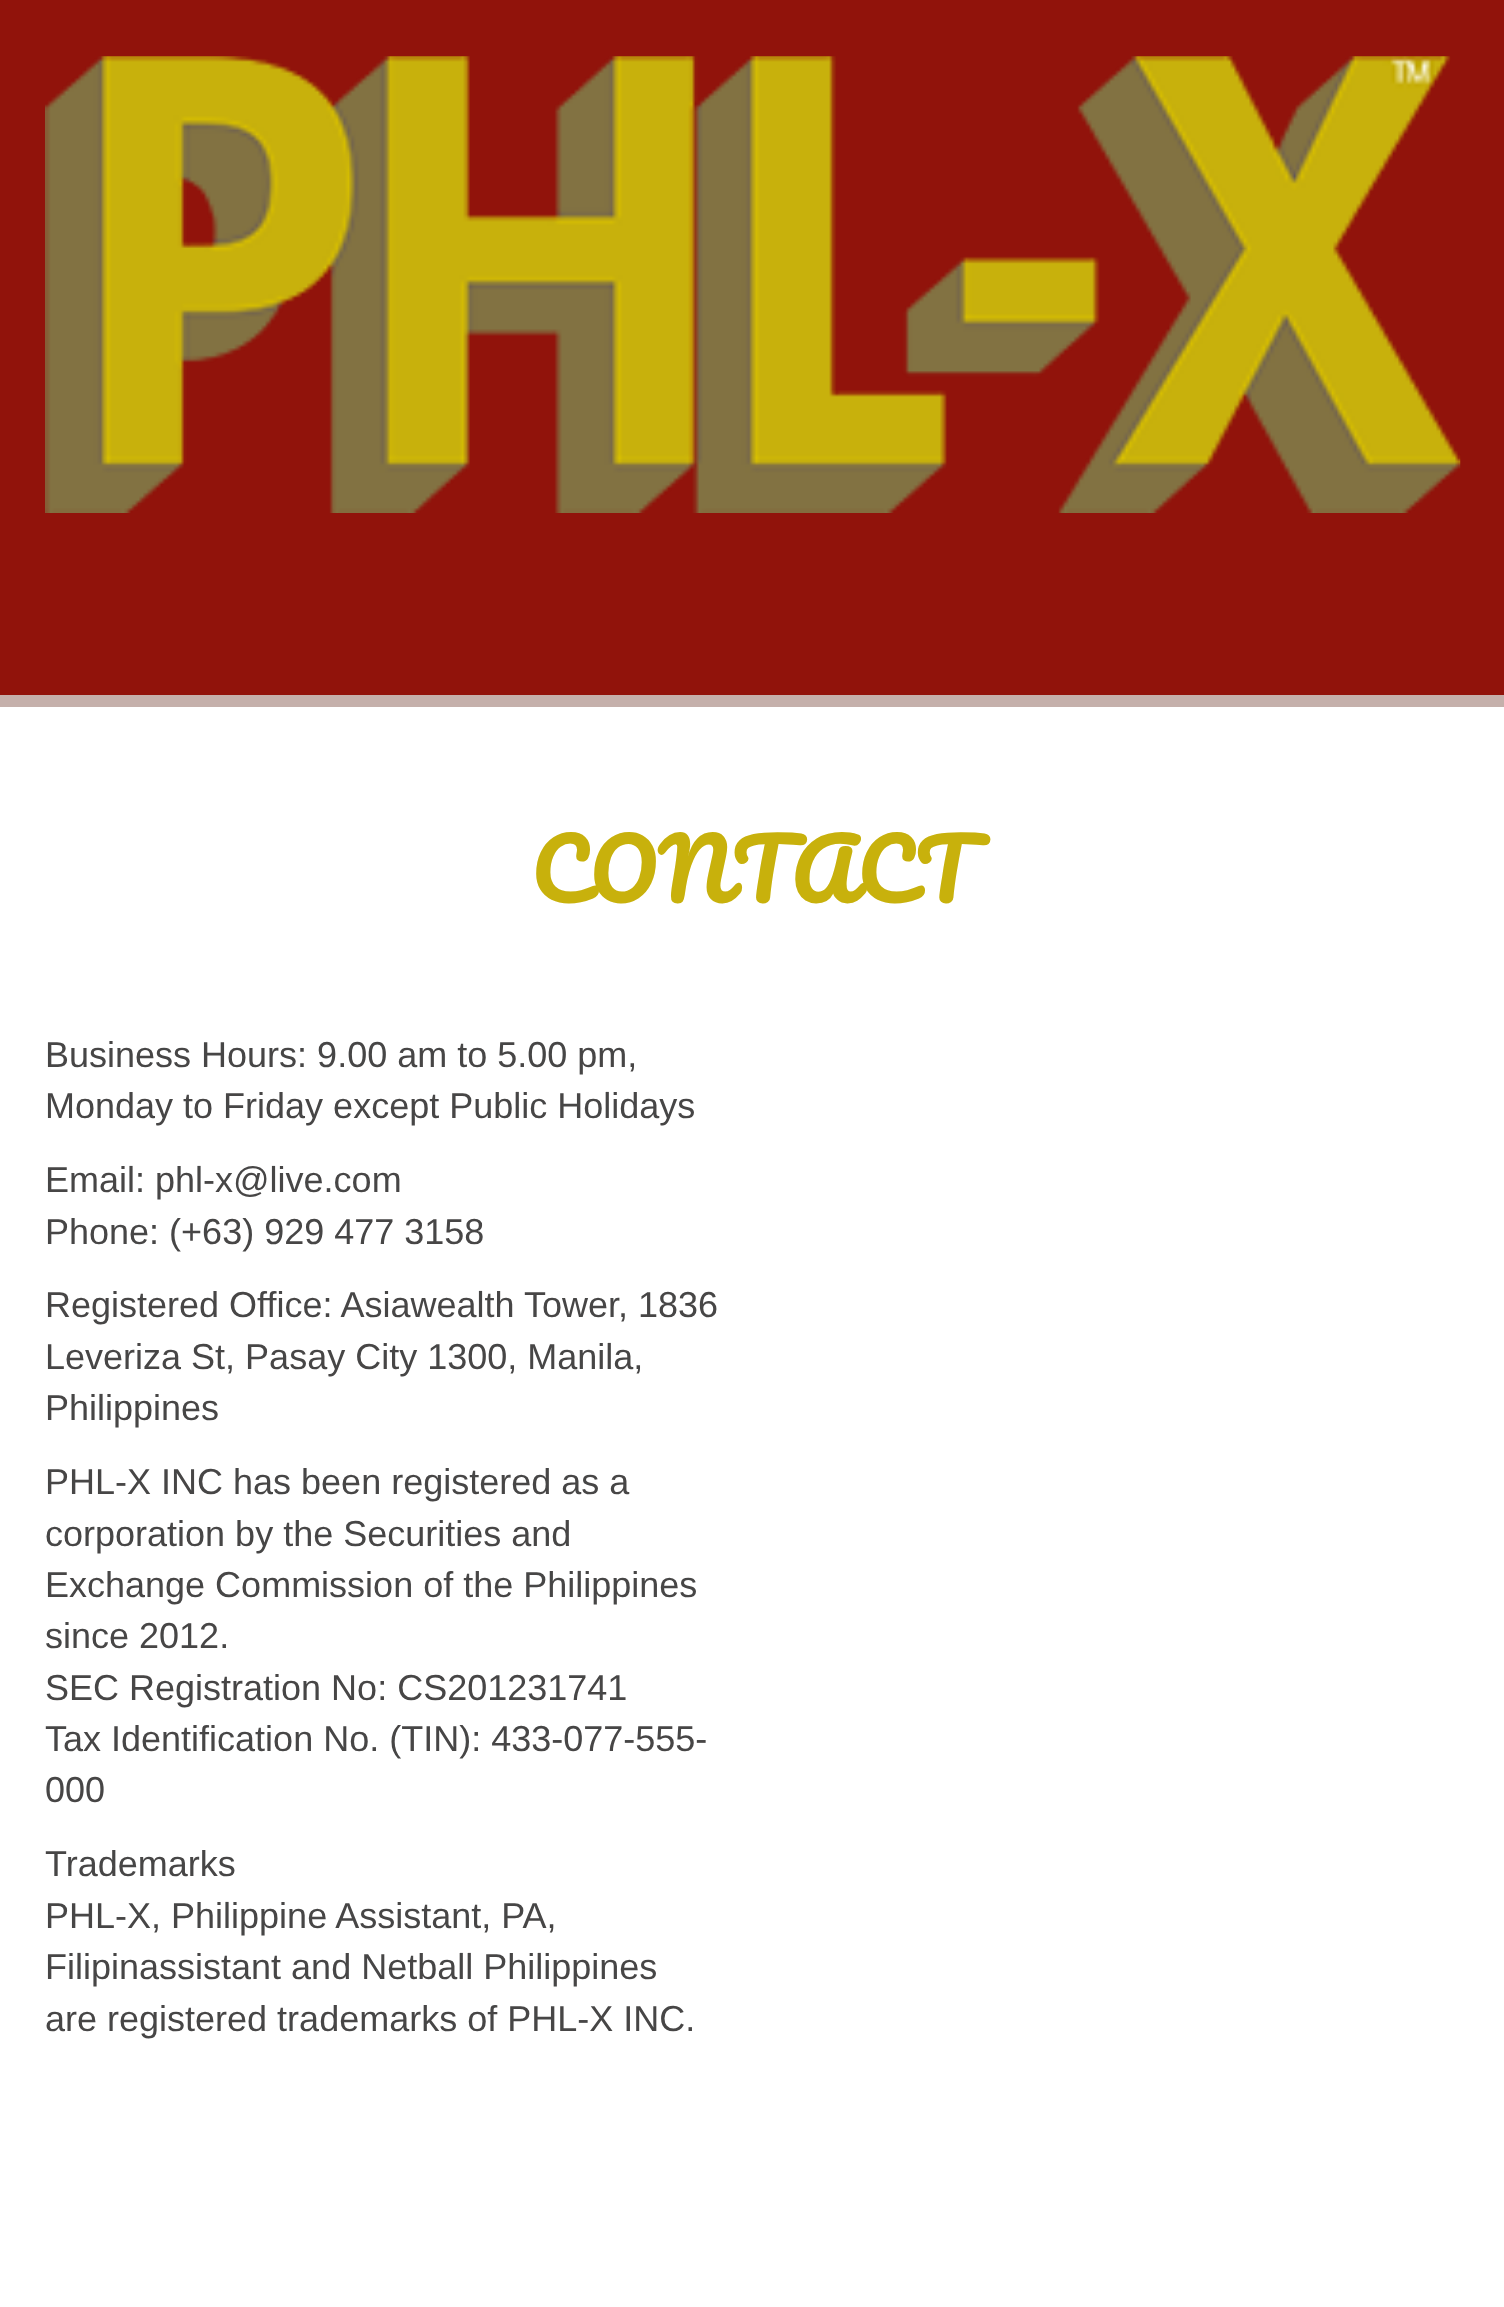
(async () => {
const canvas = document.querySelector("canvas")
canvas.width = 1504
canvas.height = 2307
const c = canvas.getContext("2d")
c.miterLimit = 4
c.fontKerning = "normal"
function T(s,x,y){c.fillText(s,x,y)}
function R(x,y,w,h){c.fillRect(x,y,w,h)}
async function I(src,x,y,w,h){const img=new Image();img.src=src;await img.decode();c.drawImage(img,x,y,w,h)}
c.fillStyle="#fff"
R(0,0,1504,2307)
c.fillStyle="#91130b"
R(0,0,1504,695)
c.fillStyle="#c5b0ab"
R(0,695,1504,12)
await I("1.png",45,56,1416,457)
c.letterSpacing="2.5px"
c.font="bold 81px Pacifico"
c.fillStyle="#c8b10c"
T("CONTACT",531,903)
c.letterSpacing="0px"
c.font="36px Liberation Sans"
c.fillStyle="#474646"
T("Business Hours: 9.00 am to 5.00 pm,",45,1067)
T("Monday to Friday except Public Holidays",45,1118)
T("Email: phl-x@live.com",45,1192)
T("Phone: (+63) 929 477 3158",45,1244)
T("Registered Office: Asiawealth Tower, 1836",45,1317)
T("Leveriza St, Pasay City 1300, Manila,",45,1369)
T("Philippines",45,1420)
T("PHL-X INC has been registered as a",45,1494)
T("corporation by the Securities and",45,1546)
T("Exchange Commission of the Philippines",45,1597)
T("since 2012.",45,1648)
T("SEC Registration No: CS201231741",45,1700)
T("Tax Identification No. (TIN): 433-077-555-",45,1751)
T("000",45,1802)
T("Trademarks",45,1876)
T("PHL-X, Philippine Assistant, PA,",45,1928)
T("Filipinassistant and Netball Philippines",45,1979)
T("are registered trademarks of PHL-X INC.",45,2031)
})()
